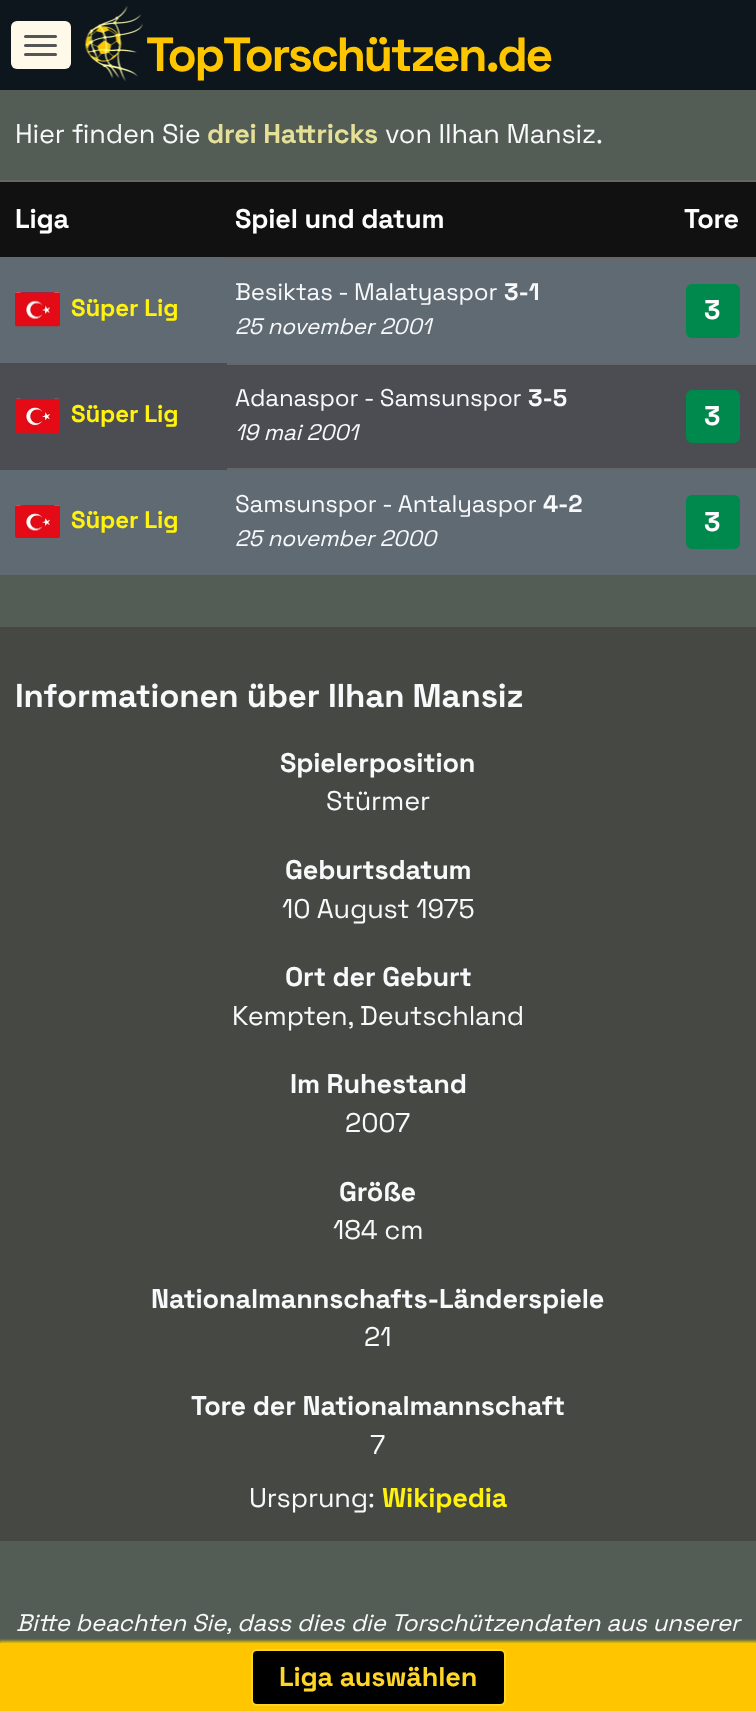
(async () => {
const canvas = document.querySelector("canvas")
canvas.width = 756
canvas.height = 1711
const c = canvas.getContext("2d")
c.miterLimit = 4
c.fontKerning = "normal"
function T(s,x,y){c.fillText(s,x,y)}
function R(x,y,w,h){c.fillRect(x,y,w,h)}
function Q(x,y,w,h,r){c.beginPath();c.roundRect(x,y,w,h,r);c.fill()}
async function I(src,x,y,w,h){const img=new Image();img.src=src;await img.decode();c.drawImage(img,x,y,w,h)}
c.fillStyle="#535c55"
R(0,0,756,1711)
c.fillStyle="#0d161d"
R(0,0,756,90)
c.fillStyle="#fff9ea"
Q(11,21,60,48,6)
c.fillStyle="#555"
Q(24,35,33,3,1.5)
Q(24,44,33,3,1.5)
Q(24,53,33,3,1.5)
await I("1.png",85,6,58,75)
c.letterSpacing="-2.25px"
c.font="bold 48px Space Grotesk"
c.fillStyle="#ffc600"
T("TopTorschützen.de",146,71)
c.letterSpacing="-0.15px"
c.font="27px Space Grotesk"
c.fillStyle="#f7f9fb"
T("Hier finden Sie",15,143)
c.font="bold 27px Space Grotesk"
c.fillStyle="#e5e098"
T("drei Hattricks",207,143)
c.font="27px Space Grotesk"
c.fillStyle="#f7f9fb"
T("von Ilhan Mansiz.",385,143)
c.fillStyle="#111"
R(0,182,756,75)
c.font="bold 27px Space Grotesk"
c.fillStyle="#fff"
T("Liga",15,228)
T("Spiel und datum",235,228)
c.fillStyle="#666"
R(0,180,756,2)
c.fillStyle="#fff"
T("Tore",684,228)
c.fillStyle="#666"
R(225,257,531,2)
c.fillStyle="#5f6a72"
R(0,257,227,106)
await I("2.png",15,292,45,35)
c.font="bold 24px Space Grotesk"
c.fillStyle="#fff20e"
T("Süper Lig",71,316)
c.fillStyle="#5f6a72"
R(227,259,529,104)
c.font="24px Space Grotesk"
c.fillStyle="#f7f9fb"
T("Besiktas - Malatyaspor",235,300)
c.font="bold 24px Space Grotesk"
T("3-1",504,300)
c.font="italic 22.5px Space Grotesk"
T("25 november 2001",235,334)
c.fillStyle="#00894c"
Q(686,284,54,54,6)
c.font="bold 27px Space Grotesk"
c.fillStyle="#fff"
T("3",704,319)
c.fillStyle="#666"
R(225,363,531,2)
R(225,468,531,2)
c.fillStyle="#4b4d52"
R(0,363,227,107)
await I("3.png",15,398,45,35)
c.font="bold 24px Space Grotesk"
c.fillStyle="#fff20e"
T("Süper Lig",71,422)
c.fillStyle="#4b4d52"
R(227,365,529,103)
c.font="24px Space Grotesk"
c.fillStyle="#f7f9fb"
T("Adanaspor - Samsunspor",235,406)
c.font="bold 24px Space Grotesk"
T("3-5",528,406)
c.font="italic 22.5px Space Grotesk"
T("19 mai 2001",235,440)
c.fillStyle="#00894c"
Q(686,390,54,53,6)
c.font="bold 27px Space Grotesk"
c.fillStyle="#fff"
T("3",704,425)
c.fillStyle="#5f6a72"
R(0,470,756,105)
await I("4.png",15,505,45,33)
c.font="bold 24px Space Grotesk"
c.fillStyle="#fff20e"
T("Süper Lig",71,528)
c.font="24px Space Grotesk"
c.fillStyle="#f7f9fb"
T("Samsunspor - Antalyaspor",235,512)
c.font="bold 24px Space Grotesk"
T("4-2",543,512)
c.font="italic 22.5px Space Grotesk"
T("25 november 2000",235,546)
c.fillStyle="#00894c"
Q(686,495,54,54,6)
c.font="bold 27px Space Grotesk"
c.fillStyle="#fff"
T("3",704,531)
c.fillStyle="#464844"
R(0,627,756,914)
c.font="bold 33px Space Grotesk"
c.fillStyle="#f7f9fb"
T("Informationen über Ilhan Mansiz",15,707)
c.font="bold 27px Space Grotesk"
T("Spielerposition",280,772)
c.font="27px Space Grotesk"
T("Stürmer",326,810)
c.font="bold 27px Space Grotesk"
T("Geburtsdatum",285,879)
c.font="27px Space Grotesk"
T("10 August 1975",282,918)
c.font="bold 27px Space Grotesk"
T("Ort der Geburt",285,986)
c.font="27px Space Grotesk"
T("Kempten, Deutschland",232,1025)
c.font="bold 27px Space Grotesk"
T("Im Ruhestand",290,1093)
c.font="27px Space Grotesk"
T("2007",345,1132)
c.font="bold 27px Space Grotesk"
T("Größe",339,1201)
c.font="27px Space Grotesk"
T("184 cm",333,1239)
c.font="bold 27px Space Grotesk"
T("Nationalmannschafts-Länderspiele",151,1308)
c.font="27px Space Grotesk"
T("21",364,1346)
c.font="bold 27px Space Grotesk"
T("Tore der Nationalmannschaft",191,1415)
c.font="27px Space Grotesk"
T("7",370,1454)
T("Ursprung:",249,1507)
c.font="bold 27px Space Grotesk"
c.fillStyle="#fff20e"
T("Wikipedia",382,1507)
c.font="italic 24px Space Grotesk"
c.fillStyle="#f7f9fb"
T("Bitte beachten Sie, dass dies die Torschützendaten aus unserer",16,1631)
c.fillStyle="#e9c300"
c.filter="blur(1.5px)"
c.beginPath()
c.rect(-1,1641,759,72)
c.fill()
c.filter="none"
c.fillStyle="#ffc600"
R(0,1643,756,68)
c.fillStyle="#000"
c.beginPath()
c.roundRect(252,1650,253,55,5)
c.fill()
c.strokeStyle="#ffd627"
c.lineWidth=2
c.stroke()
c.font="bold 27px Space Grotesk"
c.fillStyle="#ffd627"
T("Liga auswählen",279,1686)
})()
